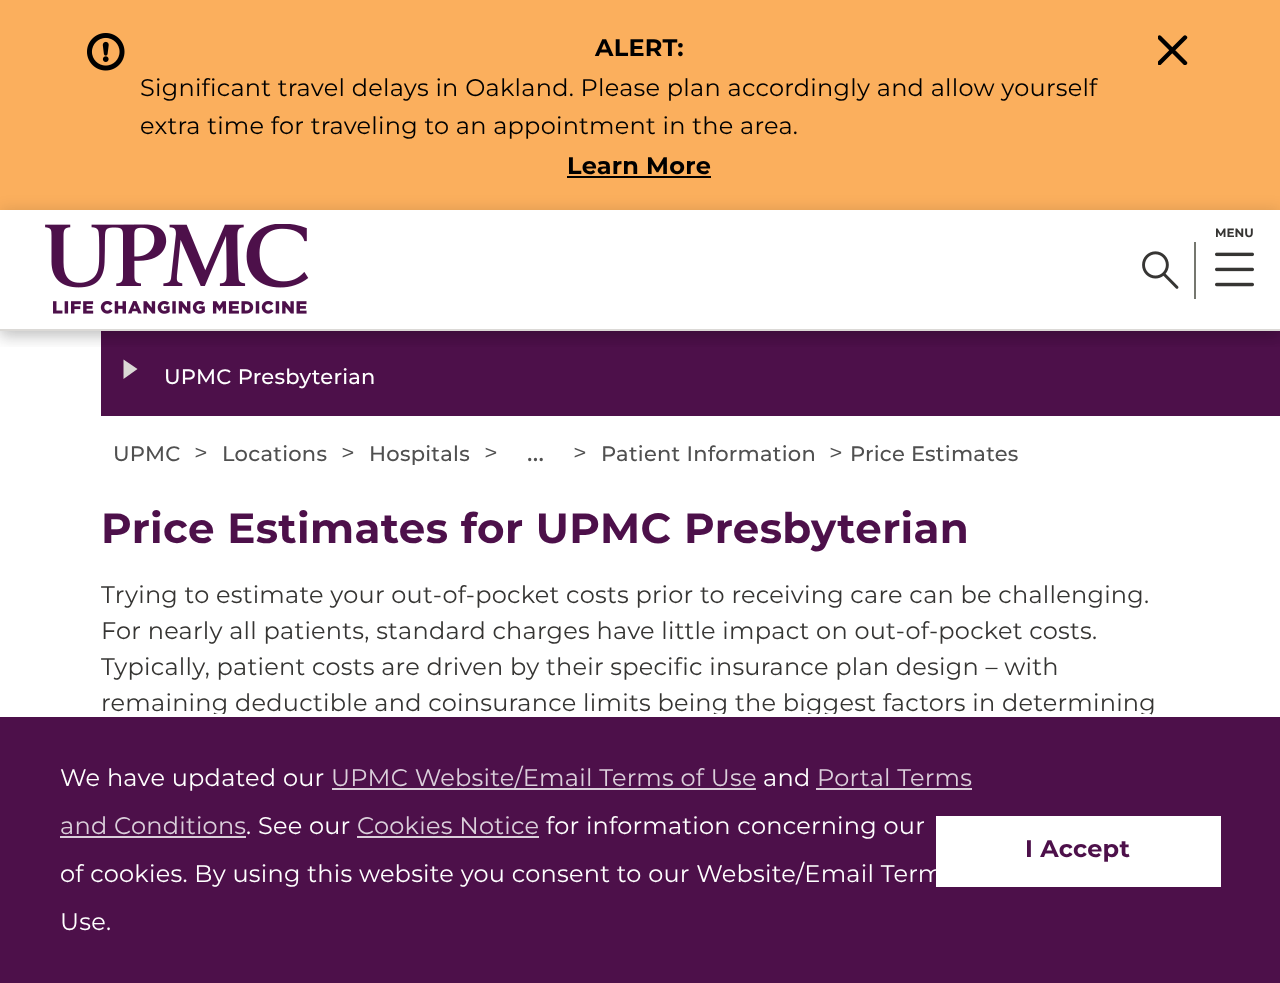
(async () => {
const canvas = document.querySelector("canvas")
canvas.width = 1280
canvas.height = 983
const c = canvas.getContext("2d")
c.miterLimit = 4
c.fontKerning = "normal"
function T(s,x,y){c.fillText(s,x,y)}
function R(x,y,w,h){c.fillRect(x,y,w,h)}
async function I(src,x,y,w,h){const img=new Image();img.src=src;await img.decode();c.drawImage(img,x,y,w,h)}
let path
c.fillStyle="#fff"
R(0,0,1280,983)
c.fillStyle="#4d104a"
R(101,331,1179,85)
c.fillStyle="#dbd9d6"
path = new Path2D("M137.5 369l-14 10v-19.5z")
c.fill(path)
c.save()
c.beginPath()
c.rect(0,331,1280,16)
c.clip()
c.fillStyle="#00000029"
c.filter="blur(7.5px)"
c.beginPath()
c.rect(0,8,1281,330)
c.fill()
c.filter="none"
c.restore()
c.fillStyle="#fbaf5d"
R(0,0,1280,210)
await I("1.png",87,33,38,38)
c.letterSpacing="0.25px"
c.font="100 24px 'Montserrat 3'"
c.fillStyle="#000"
T("ALERT:",595,56)
c.save()
c.beginPath()
c.rect(1158,35,30,30)
c.clip()
path = new Path2D("M1159.5 37.5l25.5 25.5m-25.5 0l25.5-25.5")
c.strokeStyle="#000"
c.lineWidth=4.4
c.lineCap="round"
c.stroke(path)
c.restore()
c.font="100 24px 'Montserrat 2'"
T("Significant travel delays in Oakland. Please plan accordingly and allow yourself",140,96)
T("extra time for traveling to an appointment in the area.",140,134)
c.font="100 24px 'Montserrat 3'"
T("Learn More",567,174)
R(567,176,144,2)
c.save()
path = new Path2D("M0 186h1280v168h-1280zm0 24h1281v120h-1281z")
c.clip(path,"evenodd")
c.fillStyle="#00000021"
c.filter="blur(7.5px)"
c.beginPath()
c.rect(0,210,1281,120)
c.fill()
c.filter="none"
c.restore()
c.fillStyle="#dbd9d6"
R(0,329,1280,2)
await I("2.png",45,224,264,90)
c.letterSpacing="0px"
c.font="100 12px 'Montserrat 3'"
c.fillStyle="#363533"
T("MENU",1215,237)
await I("3.png",1215,252,39,35)
c.fillStyle="#75776f"
R(1194,242,2,57)
await I("4.png",1142,251,37,38)
c.letterSpacing="0.25px"
c.font="100 21px Montserrat"
c.fillStyle="#fff"
T("UPMC Presbyterian",164,384)
c.fillStyle="#505050"
T("UPMC",113,461)
c.font="100 24px 'Montserrat 2'"
T(">",194,461)
c.font="100 21px Montserrat"
T("Locations",222,461)
c.font="100 24px 'Montserrat 2'"
T(">",341,461)
c.font="100 21px Montserrat"
T("Hospitals",369,461)
c.font="100 24px 'Montserrat 2'"
T(">",484,461)
T(">",573,461)
c.font="100 21px Montserrat"
T("Patient Information",601,461)
c.font="100 24px 'Montserrat 2'"
T(">",829,461)
c.font="100 21px Montserrat"
T("Price Estimates",850,461)
c.font="100 24px Montserrat"
T("...",527,461)
c.letterSpacing="0.4px"
c.font="100 42px 'Montserrat 3'"
c.fillStyle="#4d104a"
T("Price Estimates for UPMC Presbyterian",101,543)
c.letterSpacing="0.25px"
c.font="100 24px 'Montserrat 2'"
c.fillStyle="#363533"
T("Trying to estimate your out-of-pocket costs prior to receiving care can be challenging.",101,603)
T("For nearly all patients, standard charges have little impact on out-of-pocket costs.",101,639)
T("Typically, patient costs are driven by their specific insurance plan design – with",101,675)
T("remaining deductible and coinsurance limits being the biggest factors in determining",101,711)
c.fillStyle="#4d104a"
R(0,717,1280,266)
c.fillStyle="#fff"
R(213,714,938,2)
T("We have updated our",60,786)
c.fillStyle="#dbcfdb"
R(332,788,424,2)
T("UPMC Website/Email Terms of Use",331,786)
c.fillStyle="#fff"
T("and",763,786)
c.fillStyle="#dbcfdb"
T("Portal Terms",817,786)
R(816,788,156,2)
T("and Conditions",60,834)
R(60,836,186,2)
c.fillStyle="#fff"
T(". See our",246,834)
c.fillStyle="#dbcfdb"
T("Cookies Notice",357,834)
R(357,836,182,2)
c.fillStyle="#fff"
T("for information concerning our",546,834)
T("of cookies. By using this website you consent to our Website/Email Term",60,882)
T("Use.",60,930)
R(936,816,285,71)
c.font="100 24px 'Montserrat 3'"
c.fillStyle="#4d104a"
T("I Accept",1025,857)
})()
